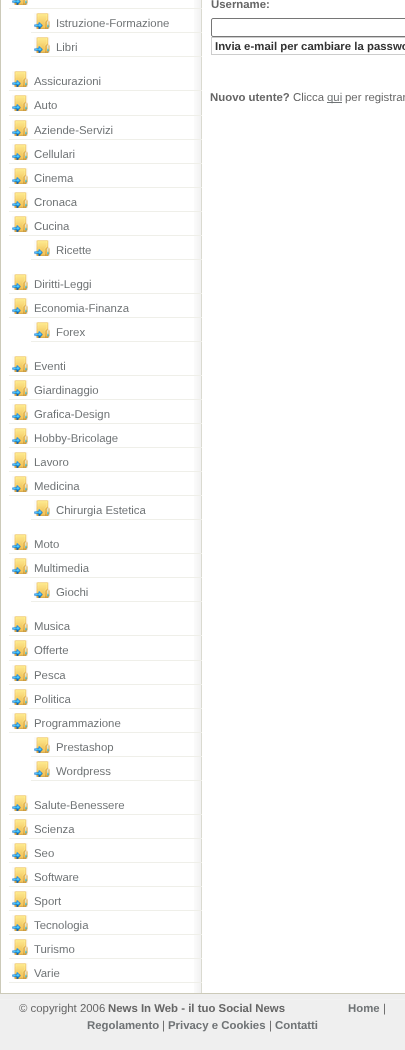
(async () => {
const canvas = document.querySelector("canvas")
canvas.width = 405
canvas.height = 1050
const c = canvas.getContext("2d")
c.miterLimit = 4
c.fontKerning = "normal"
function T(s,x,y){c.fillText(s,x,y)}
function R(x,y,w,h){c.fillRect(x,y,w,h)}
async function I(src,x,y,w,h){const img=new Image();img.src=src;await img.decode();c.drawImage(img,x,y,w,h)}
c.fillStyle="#efefef"
R(0,0,405,1050)
c.fillStyle="#fff"
R(1,0,404,993)
await I("1.png",194,0,8,993)
c.strokeStyle="#cccab9"
c.strokeRect(.5,-.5,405,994)
await I("2.png",12,0,16,5)
c.fillStyle="#efefe9"
R(9,8,193,1)
await I("3.png",34,13,16,16)
R(31,32,171,1)
c.font="11.4px Liberation Sans"
c.fillStyle="#6f7375"
T("Istruzione-Formazione",56,27)
await I("3.png",34,37,16,16)
c.fillStyle="#efefe9"
R(31,56,171,1)
c.fillStyle="#6f7375"
T("Libri",56,51)
await I("3.png",12,71,16,16)
c.fillStyle="#efefe9"
R(9,90,193,1)
c.fillStyle="#6f7375"
T("Assicurazioni",34,85)
await I("3.png",12,95,16,16)
c.fillStyle="#efefe9"
R(9,115,193,1)
c.fillStyle="#6f7375"
T("Auto",34,109)
await I("3.png",12,120,16,16)
c.fillStyle="#efefe9"
R(9,139,193,1)
c.fillStyle="#6f7375"
T("Aziende-Servizi",34,134)
await I("3.png",12,144,16,16)
c.fillStyle="#efefe9"
R(9,163,193,1)
c.fillStyle="#6f7375"
T("Cellulari",34,158)
await I("3.png",12,168,16,16)
c.fillStyle="#efefe9"
R(9,187,193,1)
c.fillStyle="#6f7375"
T("Cinema",34,182)
await I("3.png",12,192,16,16)
c.fillStyle="#efefe9"
R(9,211,193,1)
c.fillStyle="#6f7375"
T("Cronaca",34,206)
await I("3.png",12,216,16,16)
c.fillStyle="#efefe9"
R(9,235,193,1)
c.fillStyle="#6f7375"
T("Cucina",34,230)
await I("3.png",34,240,16,16)
c.fillStyle="#efefe9"
R(31,259,171,1)
c.fillStyle="#6f7375"
T("Ricette",56,254)
await I("3.png",12,274,16,16)
c.fillStyle="#efefe9"
R(9,293,193,1)
c.fillStyle="#6f7375"
T("Diritti-Leggi",34,288)
await I("3.png",12,298,16,16)
c.fillStyle="#efefe9"
R(9,317,193,1)
c.fillStyle="#6f7375"
T("Economia-Finanza",34,312)
await I("3.png",34,322,16,16)
c.fillStyle="#efefe9"
R(31,341,171,1)
c.fillStyle="#6f7375"
T("Forex",56,336)
await I("3.png",12,356,16,16)
c.fillStyle="#efefe9"
R(9,375,193,1)
c.fillStyle="#6f7375"
T("Eventi",34,370)
await I("3.png",12,380,16,16)
c.fillStyle="#efefe9"
R(9,399,193,1)
c.fillStyle="#6f7375"
T("Giardinaggio",34,394)
await I("3.png",12,404,16,16)
c.fillStyle="#efefe9"
R(9,423,193,1)
c.fillStyle="#6f7375"
T("Grafica-Design",34,418)
await I("3.png",12,428,16,16)
c.fillStyle="#efefe9"
R(9,447,193,1)
c.fillStyle="#6f7375"
T("Hobby-Bricolage",34,442)
await I("3.png",12,452,16,16)
c.fillStyle="#efefe9"
R(9,471,193,1)
c.fillStyle="#6f7375"
T("Lavoro",34,466)
await I("3.png",12,476,16,16)
c.fillStyle="#efefe9"
R(9,495,193,1)
c.fillStyle="#6f7375"
T("Medicina",34,490)
await I("3.png",34,500,16,16)
c.fillStyle="#efefe9"
R(31,519,171,1)
c.fillStyle="#6f7375"
T("Chirurgia Estetica",56,514)
await I("3.png",12,534,16,16)
c.fillStyle="#efefe9"
R(9,553,193,1)
c.fillStyle="#6f7375"
T("Moto",34,548)
await I("3.png",12,558,16,16)
c.fillStyle="#efefe9"
R(9,577,193,1)
c.fillStyle="#6f7375"
T("Multimedia",34,572)
await I("3.png",34,582,16,16)
c.fillStyle="#efefe9"
R(31,601,171,1)
c.fillStyle="#6f7375"
T("Giochi",56,596)
await I("3.png",12,616,16,16)
c.fillStyle="#efefe9"
R(9,635,193,1)
c.fillStyle="#6f7375"
T("Musica",34,630)
await I("3.png",12,640,16,16)
c.fillStyle="#efefe9"
R(9,660,193,1)
c.fillStyle="#6f7375"
T("Offerte",34,654)
await I("3.png",12,665,16,16)
c.fillStyle="#efefe9"
R(9,684,193,1)
c.fillStyle="#6f7375"
T("Pesca",34,679)
await I("3.png",12,689,16,16)
c.fillStyle="#efefe9"
R(9,708,193,1)
c.fillStyle="#6f7375"
T("Politica",34,703)
await I("3.png",12,713,16,16)
c.fillStyle="#efefe9"
R(9,732,193,1)
c.fillStyle="#6f7375"
T("Programmazione",34,727)
await I("3.png",34,737,16,16)
c.fillStyle="#efefe9"
R(31,756,171,1)
c.fillStyle="#6f7375"
T("Prestashop",56,751)
await I("3.png",34,761,16,16)
c.fillStyle="#efefe9"
R(31,780,171,1)
c.fillStyle="#6f7375"
T("Wordpress",56,775)
await I("3.png",12,795,16,16)
c.fillStyle="#efefe9"
R(9,814,193,1)
c.fillStyle="#6f7375"
T("Salute-Benessere",34,809)
await I("3.png",12,819,16,16)
c.fillStyle="#efefe9"
R(9,838,193,1)
c.fillStyle="#6f7375"
T("Scienza",34,833)
await I("3.png",12,843,16,16)
c.fillStyle="#efefe9"
R(9,862,193,1)
c.fillStyle="#6f7375"
T("Seo",34,857)
await I("3.png",12,867,16,16)
c.fillStyle="#efefe9"
R(9,886,193,1)
c.fillStyle="#6f7375"
T("Software",34,881)
await I("3.png",12,891,16,16)
c.fillStyle="#efefe9"
R(9,910,193,1)
c.fillStyle="#6f7375"
T("Sport",34,905)
await I("3.png",12,915,16,16)
c.fillStyle="#efefe9"
R(9,934,193,1)
c.fillStyle="#6f7375"
T("Tecnologia",34,929)
await I("3.png",12,939,16,16)
c.fillStyle="#efefe9"
R(9,958,193,1)
c.fillStyle="#6f7375"
T("Turismo",34,953)
await I("3.png",12,963,16,16)
c.fillStyle="#efefe9"
R(9,982,193,1)
c.fillStyle="#6f7375"
T("Varie",34,977)
c.font="bold 11.4px Liberation Sans"
c.fillStyle="#666"
T("Username:",211,8)
c.beginPath()
c.roundRect(211.5,18.5,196,18,1.5)
c.strokeStyle="#767676"
c.stroke()
c.strokeStyle="#ccc"
c.strokeRect(211.5,37.5,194,17)
c.fillStyle="#333"
T("Invia e-mail per cambiare la passwo",215,50)
c.fillStyle="#666"
T("Nuovo utente?",210,101)
c.font="11.4px Liberation Sans"
T("Clicca",293,101)
c.fillStyle="#6f7375"
R(327,102,15,1)
T("qui",327,101)
c.fillStyle="#666"
T("per registrar",345,101)
c.fillStyle="#f2f2f2"
R(0,999,405,1)
c.fillStyle="#666"
T("© copyright 2006",19,1012)
c.font="bold 11.4px Liberation Sans"
T("News In Web - il tuo Social News",108,1012)
c.fillStyle="#6f7375"
T("Home",348,1012)
c.font="11.4px Liberation Sans"
c.fillStyle="#666"
T("|",383,1012)
c.font="bold 11.4px Liberation Sans"
c.fillStyle="#6f7375"
T("Regolamento",87,1029)
c.font="11.4px Liberation Sans"
c.fillStyle="#666"
T("|",162,1029)
c.font="bold 11.4px Liberation Sans"
c.fillStyle="#6f7375"
T("Privacy e Cookies",168,1029)
c.font="11.4px Liberation Sans"
c.fillStyle="#666"
T("|",269,1029)
c.font="bold 11.4px Liberation Sans"
c.fillStyle="#6f7375"
T("Contatti",275,1029)
})()
